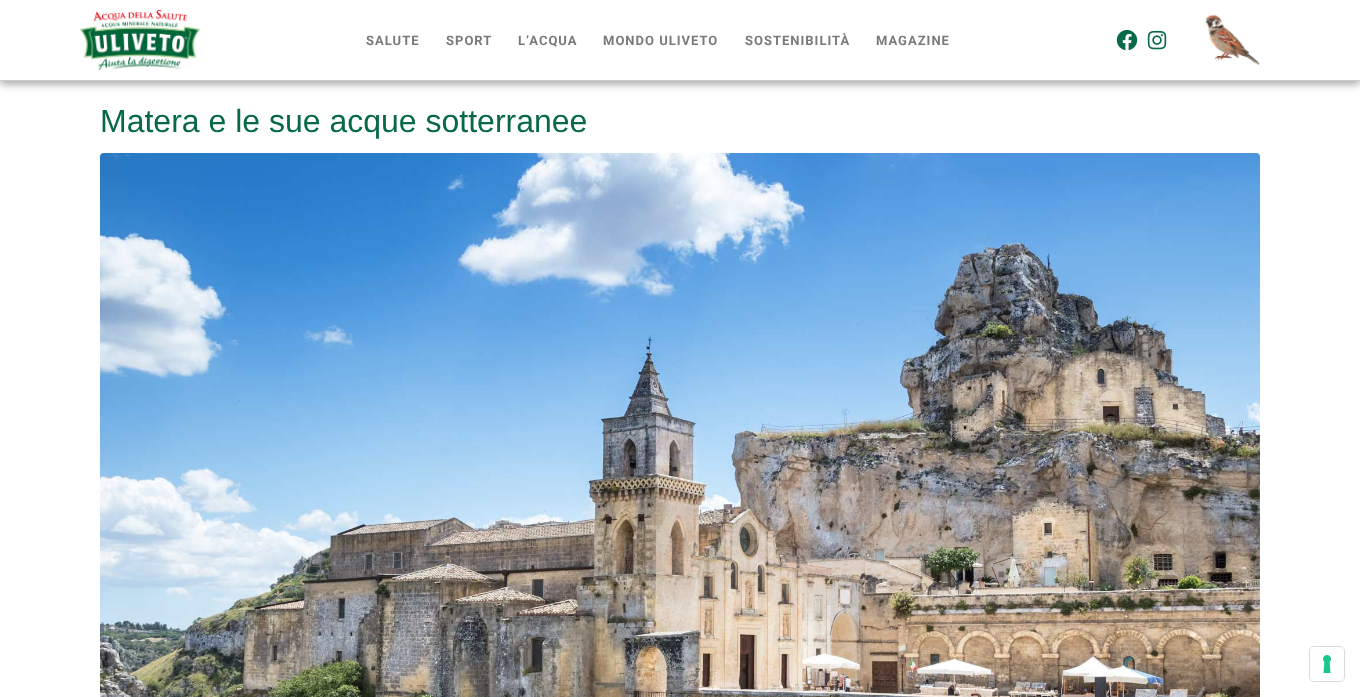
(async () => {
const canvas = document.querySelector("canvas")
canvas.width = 1360
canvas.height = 697
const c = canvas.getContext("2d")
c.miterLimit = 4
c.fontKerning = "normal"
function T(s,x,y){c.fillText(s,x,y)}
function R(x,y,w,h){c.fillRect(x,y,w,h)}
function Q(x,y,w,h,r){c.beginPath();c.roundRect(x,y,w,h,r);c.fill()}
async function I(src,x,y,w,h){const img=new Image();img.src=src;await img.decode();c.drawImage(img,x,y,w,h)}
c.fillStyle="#fff"
R(0,0,1360,697)
c.save()
c.beginPath()
c.rect(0,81,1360,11)
c.clip()
c.fillStyle="#7a7a7ab3"
c.filter="blur(4px)"
c.beginPath()
c.rect(0,3,1360,81)
c.fill()
c.filter="none"
c.restore()
c.fillStyle="#ccc"
R(0,80,1360,1)
await I("1.png",80,10,120,60)
c.letterSpacing="1px"
c.font="bold 13px Roboto"
c.fillStyle="#7a7a7a"
T("SALUTE",366,45)
T("SPORT",446,45)
T("L’ACQUA",518,45)
T("MONDO ULIVETO",603,45)
T("SOSTENIBILITÀ",745,45)
T("MAGAZINE",876,45)
await I("2.png",1116,30,22,21)
await I("3.png",1147,30,20,20)
await I("4.png",1205,14,55,52)
c.letterSpacing="0px"
c.font="32px Liberation Sans"
c.fillStyle="#086949"
T("Matera e le sue acque sotterranee",100,132)
await I("5.png",100,153,1160,544)
c.beginPath()
c.roundRect(1309.5,646.5,35,35,4.5)
c.strokeStyle="#d9d9d9"
c.stroke()
c.fillStyle="#fff"
Q(1310,647,34,34,4)
await I("6.png",1323,655,8,18)
})()
